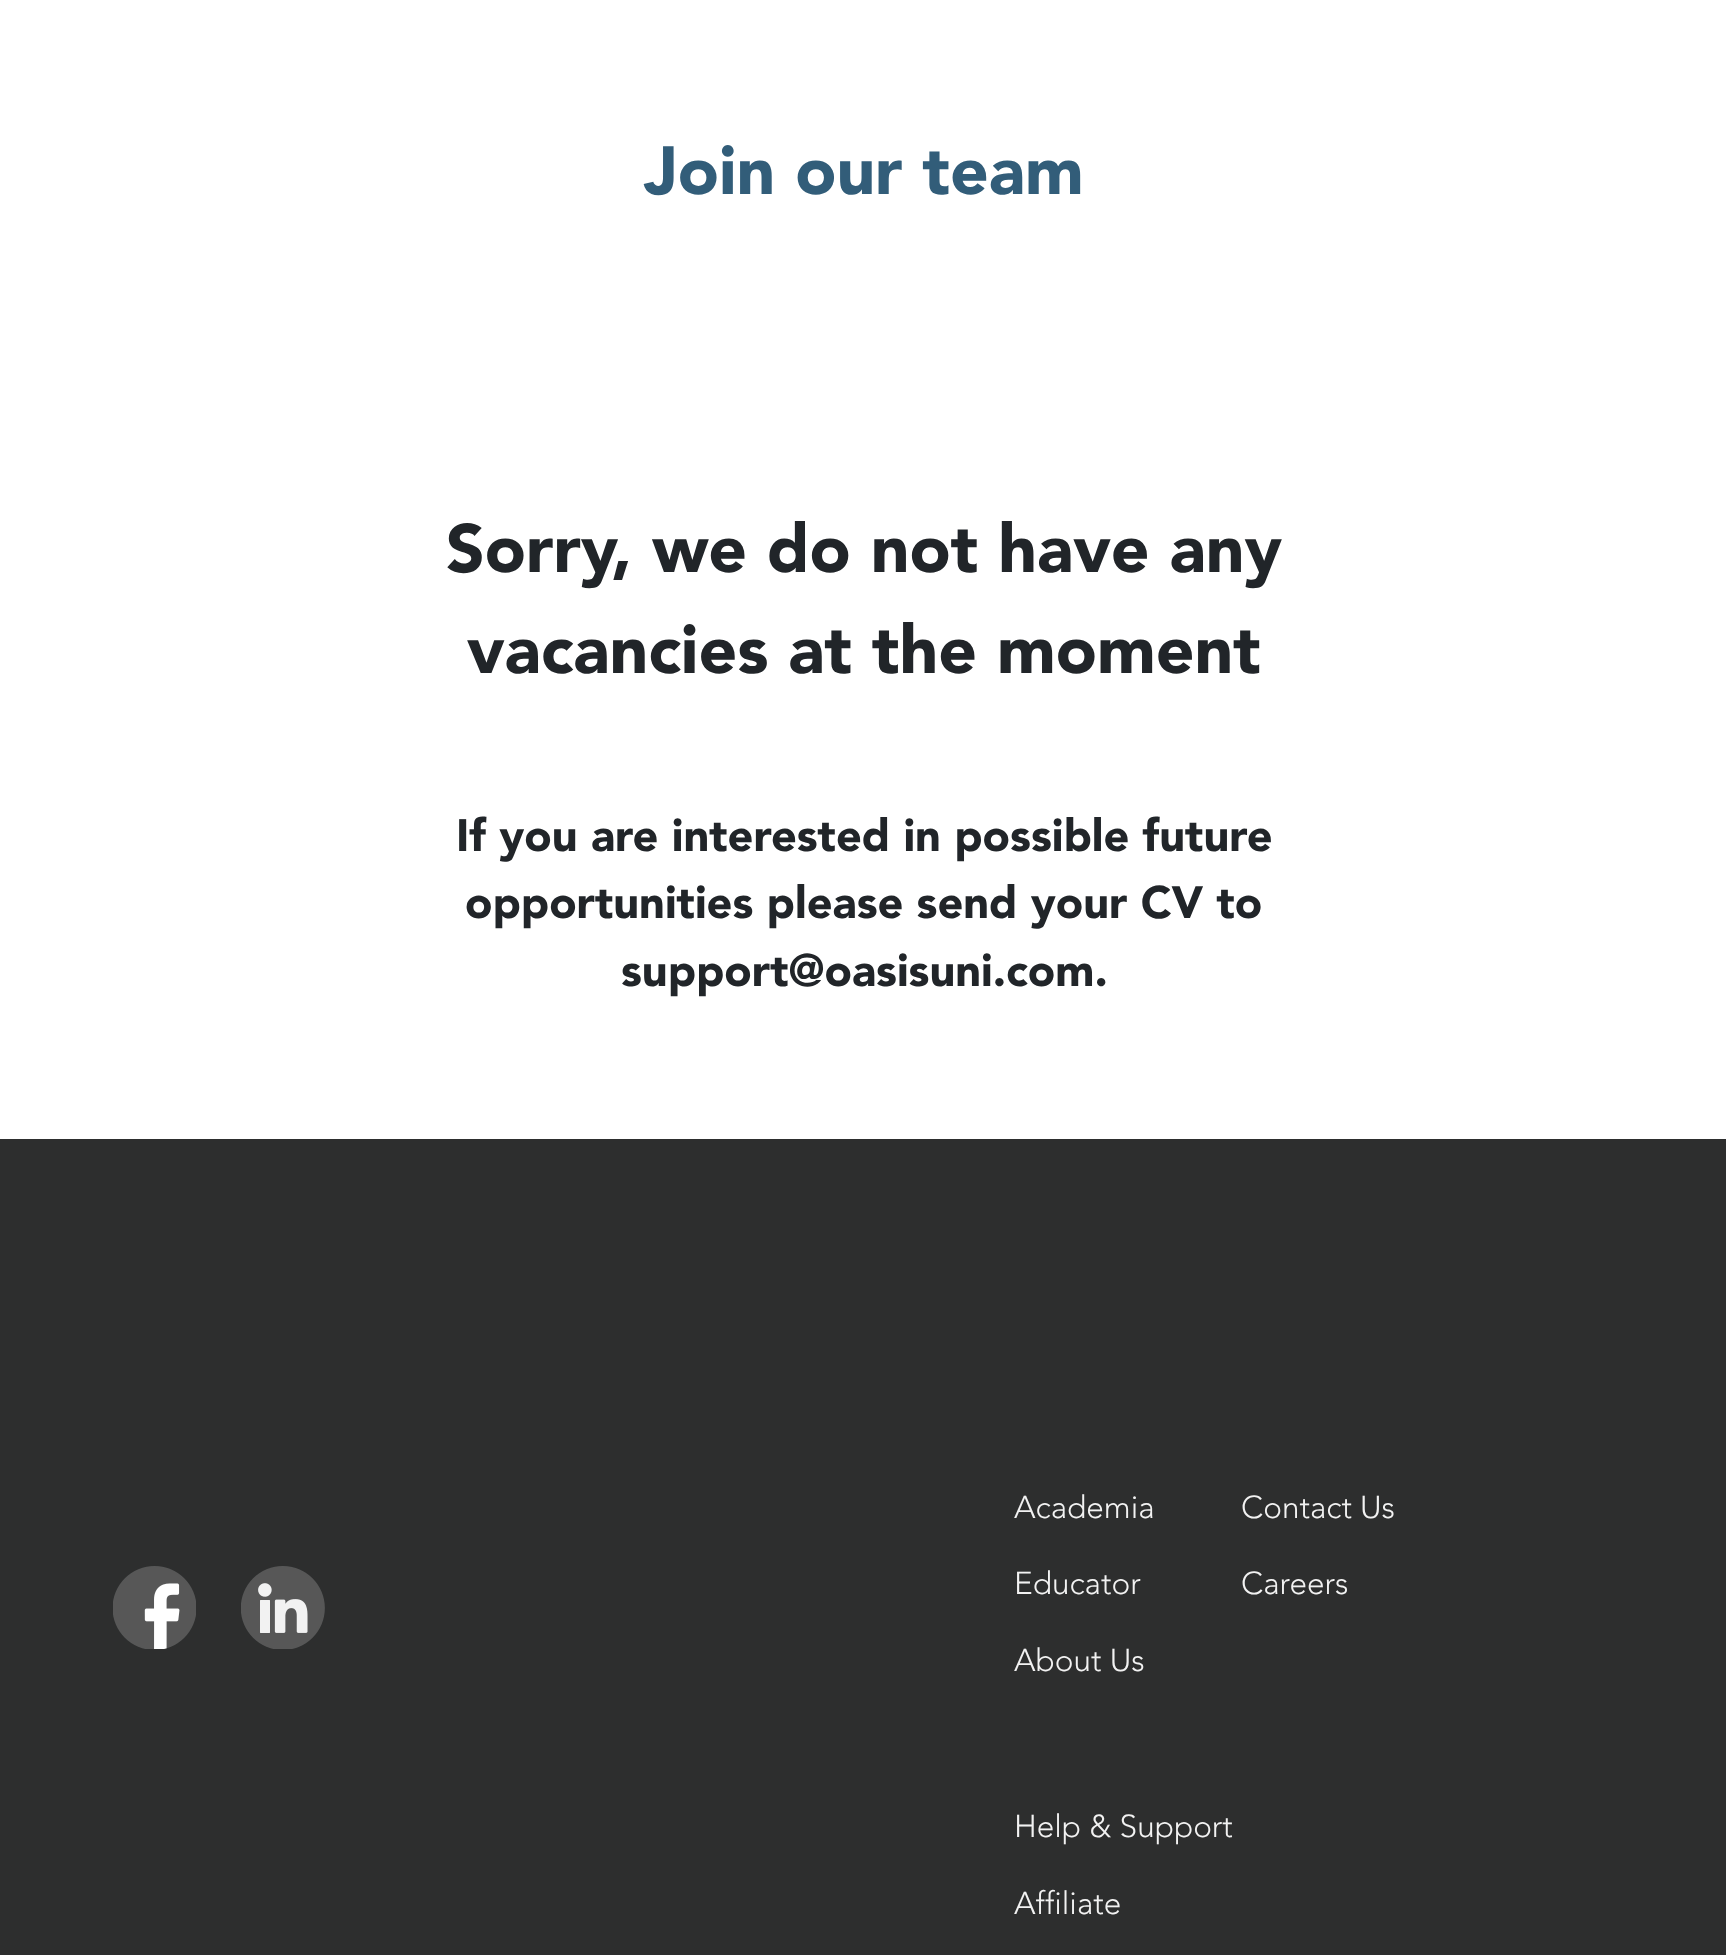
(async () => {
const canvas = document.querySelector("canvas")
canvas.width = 1726
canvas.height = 1955
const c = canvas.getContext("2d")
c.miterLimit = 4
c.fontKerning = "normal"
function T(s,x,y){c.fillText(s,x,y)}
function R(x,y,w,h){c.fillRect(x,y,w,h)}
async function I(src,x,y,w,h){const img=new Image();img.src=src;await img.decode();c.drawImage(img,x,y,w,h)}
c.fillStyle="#fff"
R(0,0,1726,1955)
c.font="900 67.5px Avenir"
c.fillStyle="#325d79"
T("Join our team",644,194)
c.fillStyle="#212529"
T("Sorry, we do not have any",446,572)
T("vacancies at the moment",467,673)
c.font="900 45px Avenir"
T("If you are interested in possible future",456,851)
T("opportunities please send your CV to",465,918)
T("support@oasisuni.com.",621,986)
c.fillStyle="#2d2e2e"
R(0,1139,1726,816)
await I("1.png",113,1566,83,83)
await I("2.png",241,1566,84,83)
c.font="300 31.5px Avenir"
c.fillStyle="#f2f2f2"
T("Academia",1014,1518)
T("Educator",1014,1594)
T("About Us",1014,1671)
T("Contact Us",1241,1518)
T("Careers",1241,1594)
T("Help & Support",1014,1837)
T("Affiliate",1014,1914)
})()
